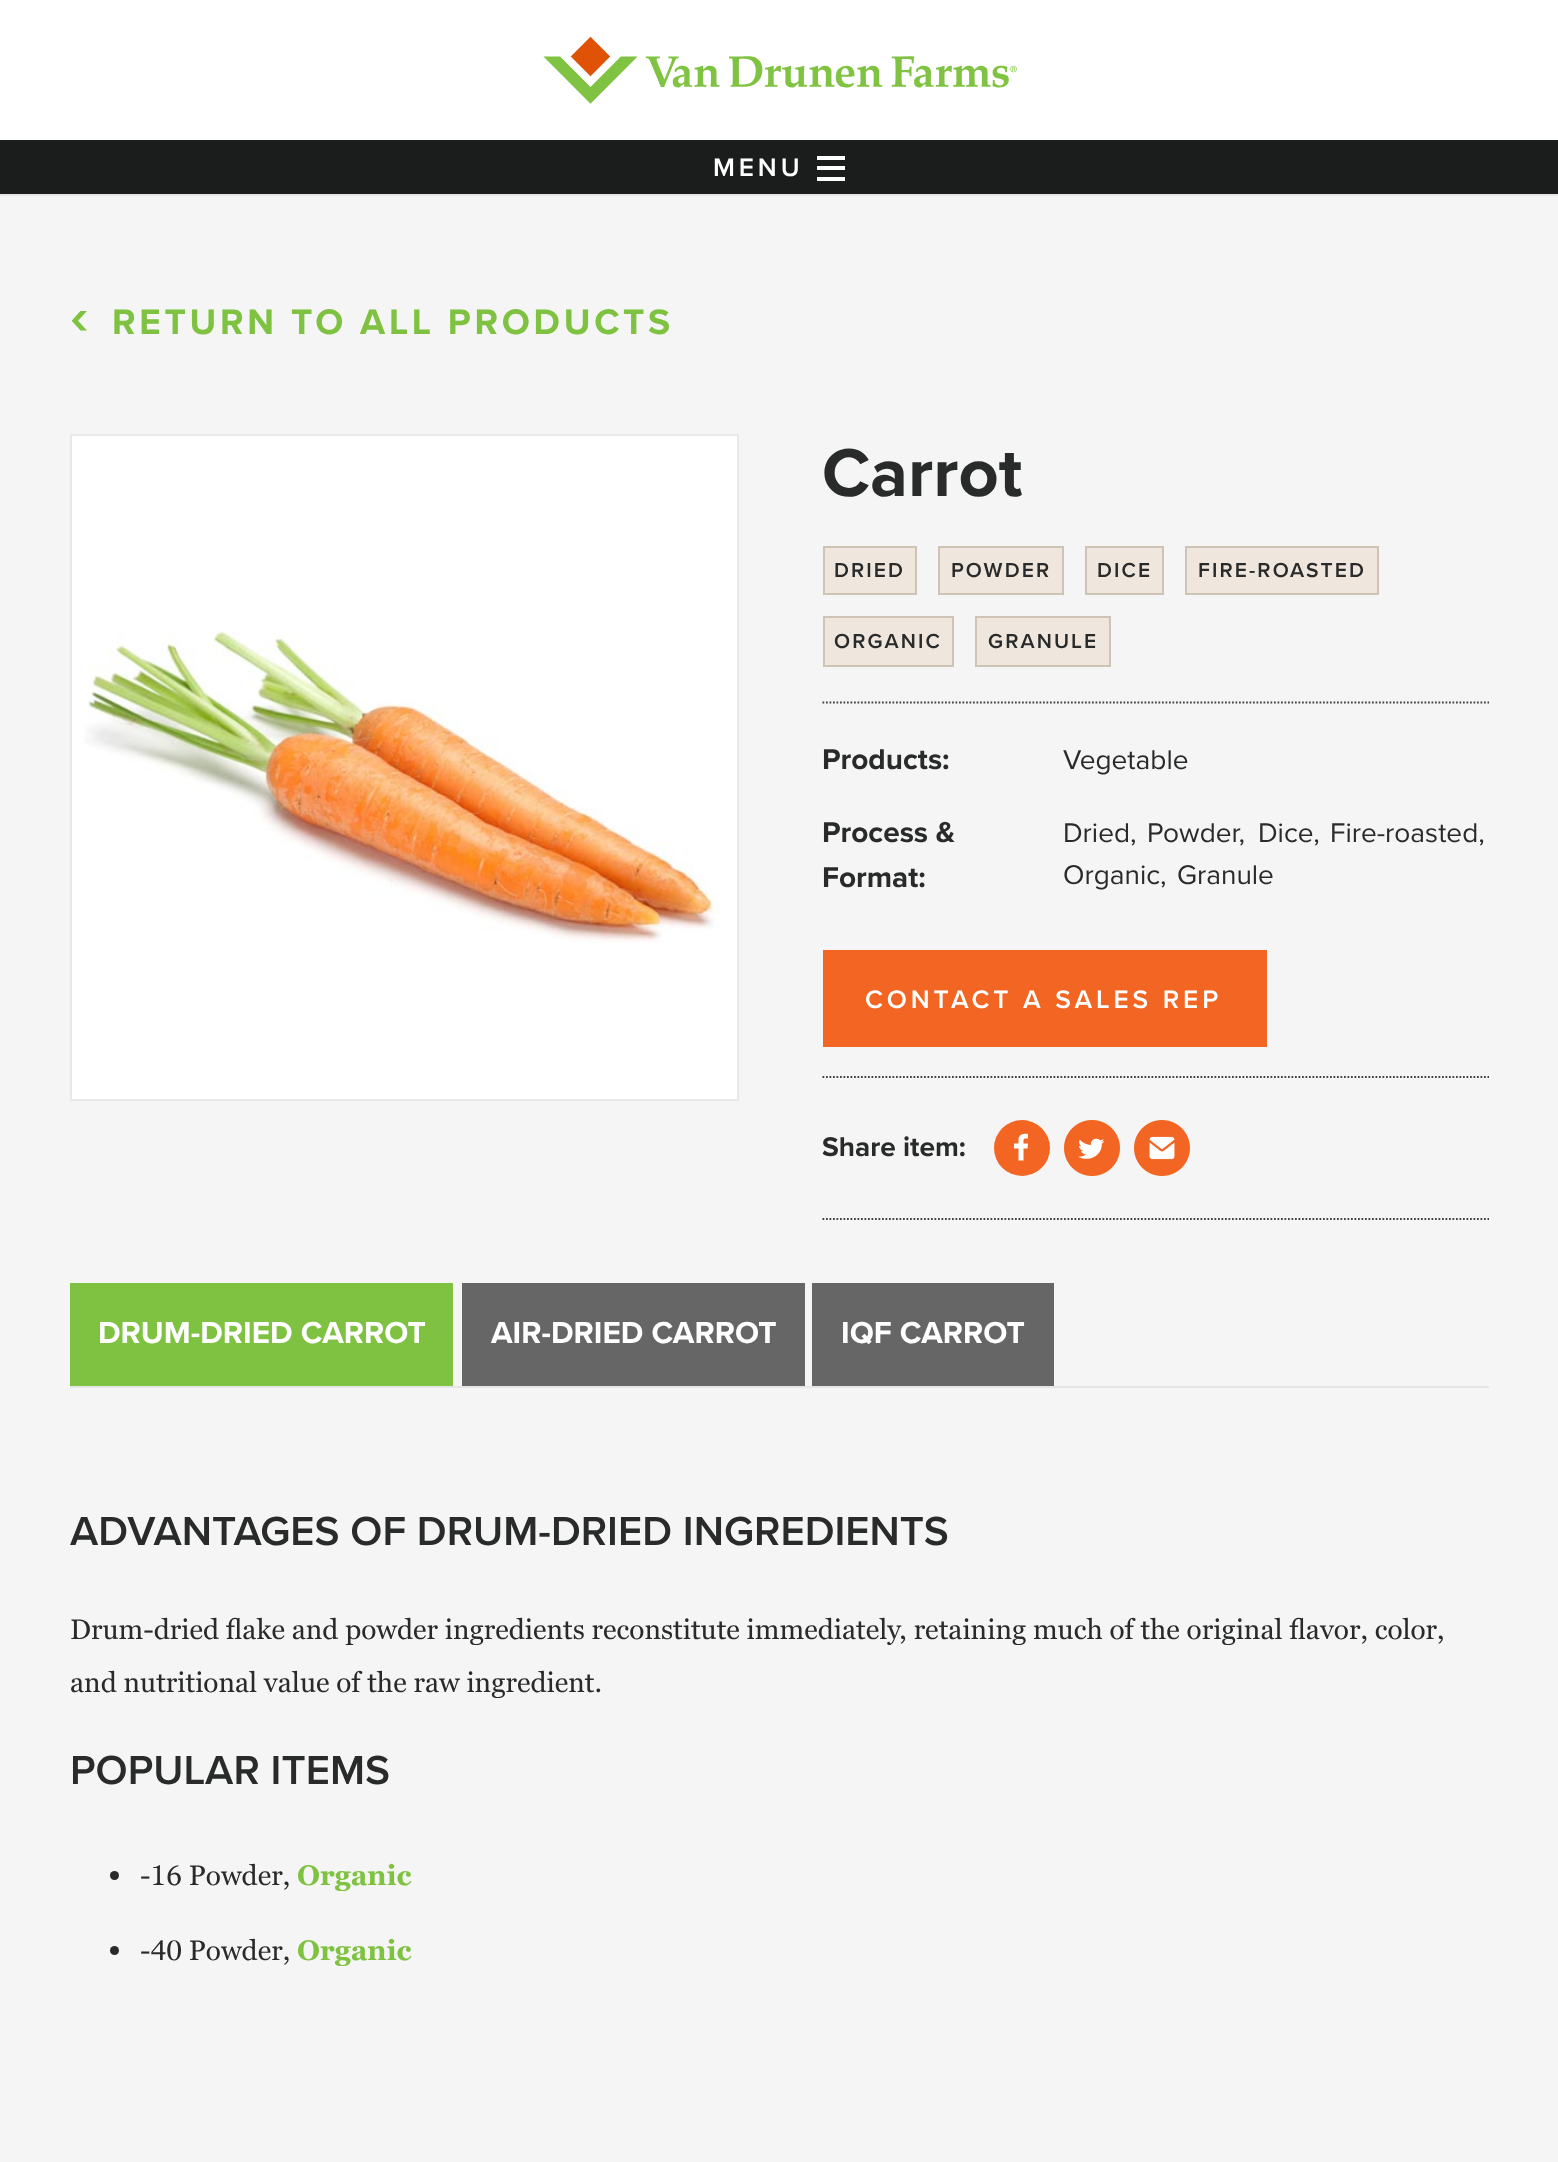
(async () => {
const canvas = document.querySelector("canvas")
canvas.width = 1558
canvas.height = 2162
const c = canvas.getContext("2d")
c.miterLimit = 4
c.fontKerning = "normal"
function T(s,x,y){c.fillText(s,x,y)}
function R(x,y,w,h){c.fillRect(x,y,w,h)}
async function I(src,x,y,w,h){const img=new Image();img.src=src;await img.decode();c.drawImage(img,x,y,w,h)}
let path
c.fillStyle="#fff"
R(0,0,1558,2162)
await I("1.png",543,36,474,68)
c.fillStyle="#1b1d1d"
R(0,140,1558,54)
c.letterSpacing="3.9px"
c.font="600 26.25px Proxima Nova"
c.fillStyle="#fff"
T("MENU",713,176)
R(817,156,28,4)
R(817,166,28,4)
R(817,177,28,4)
c.fillStyle="#e6e6e6"
R(0,194,1558,2)
c.fillStyle="#f5f5f5"
R(0,196,1558,1966)
c.letterSpacing="3.7px"
c.font="bold 55px Proxima Nova"
c.fillStyle="#7fc241"
T("‹",70,334)
c.font="bold 36.75px Proxima Nova"
T("RETURN TO ALL PRODUCTS",112,334)
c.fillStyle="#fff"
c.beginPath()
c.rect(71,435,667,665)
c.fill()
c.strokeStyle="#e8e8e8"
c.lineWidth=2
c.stroke()
await I("2.png",84,631,635,312)
c.letterSpacing="0px"
c.font="bold 70px Proxima Nova"
c.fillStyle="#292a2a"
T("Carrot",822,496)
c.fillStyle="#efe7de"
c.beginPath()
c.rect(824,547,92,47)
c.fill()
c.strokeStyle="#cec3b4"
c.stroke()
c.letterSpacing="2.1px"
c.font="600 21px Proxima Nova"
c.fillStyle="#292a2a"
T("DRIED",834,577)
c.fillStyle="#efe7de"
c.beginPath()
c.rect(939,547,124,47)
c.fill()
c.stroke()
c.fillStyle="#292a2a"
T("POWDER",951,577)
c.fillStyle="#efe7de"
c.beginPath()
c.rect(1086,547,77,47)
c.fill()
c.stroke()
c.fillStyle="#292a2a"
T("DICE",1097,577)
c.fillStyle="#efe7de"
c.beginPath()
c.rect(1186,547,192,47)
c.fill()
c.stroke()
c.fillStyle="#292a2a"
T("FIRE-ROASTED",1198,577)
c.fillStyle="#efe7de"
c.beginPath()
c.rect(824,617,129,49)
c.fill()
c.stroke()
c.fillStyle="#292a2a"
T("ORGANIC",834,648)
c.fillStyle="#efe7de"
c.beginPath()
c.rect(976,617,134,49)
c.fill()
c.stroke()
c.fillStyle="#292a2a"
T("GRANULE",988,648)
path = new Path2D("M822.5 702.5h666.5")
c.strokeStyle="#414042"
c.lineWidth=1.8
c.setLineDash([1.75,1.75])
c.stroke(path)
c.letterSpacing="0px"
c.font="bold 29.75px Proxima Nova"
T("Products:",822,769)
c.font="28px Proxima Nova"
T("Vegetable",1063,769)
c.font="bold 29.75px Proxima Nova"
T("Process &",822,842)
T("Format:",822,887)
c.font="28px Proxima Nova"
T("Dried,",1063,842)
T("Powder,",1147,842)
T("Dice,",1258,842)
T("Fire-roasted,",1330,842)
T("Organic,",1063,884)
T("Granule",1177,884)
c.fillStyle="#f26522"
R(823,950,444,97)
c.letterSpacing="3.9px"
c.font="600 26.25px Proxima Nova"
c.fillStyle="#fff"
T("CONTACT A SALES REP",865,1008)
path = new Path2D("M822.5 1077h666.5")
c.stroke(path)
c.letterSpacing="0px"
c.font="bold 28px Proxima Nova"
c.fillStyle="#292a2a"
T("Share item:",822,1156)
c.fillStyle="#f26522"
c.beginPath()
c.arc(1022,1148,28,0,7)
c.fill()
c.fillStyle="#fff"
path = new Path2D("M1014 1148.5v-5h4.5v-4.5c.5-5 6-5.5 9.5-5v4.5c-5 0-4.5 0-4.5 5h4.5l-.5 5h-4v12h-5v-12z")
c.fill(path)
await I("3.png",1064,1120,56,56)
await I("4.png",1134,1120,56,56)
path = new Path2D("M822.5 1219h666.5")
c.stroke(path)
c.fillStyle="#e6e6e6"
R(70,1386,1419,2)
c.fillStyle="#7fc241"
R(70,1283,383,103)
c.font="bold 31.5px Proxima Nova"
c.fillStyle="#fff"
T("DRUM-DRIED CARROT",98,1343)
c.fillStyle="#666"
R(462,1283,343,103)
c.fillStyle="#fff"
T("AIR-DRIED CARROT",491,1343)
c.fillStyle="#666"
R(812,1283,242,103)
c.fillStyle="#fff"
T("IQF CARROT",841,1343)
c.font="600 42px Proxima Nova"
c.fillStyle="#292a2a"
T("ADVANTAGES OF DRUM-DRIED INGREDIENTS",70,1545)
c.font="28px Georgia"
T("Drum-dried flake and powder ingredients reconstitute immediately, retaining much of the original flavor, color,",70,1639)
T("and nutritional value of the raw ingredient.",70,1692)
c.font="600 42px Proxima Nova"
T("POPULAR ITEMS",70,1784)
c.beginPath()
c.arc(114.5,1875.5,4.5,0,7)
c.fill()
c.font="28px Georgia"
T("-16 Powder,",140,1885)
c.font="bold 28px Georgia"
c.fillStyle="#7fc241"
T("Organic",297,1885)
c.fillStyle="#292a2a"
c.beginPath()
c.arc(114.5,1950.5,4.5,0,7)
c.fill()
c.font="28px Georgia"
T("-40 Powder,",140,1960)
c.font="bold 28px Georgia"
c.fillStyle="#7fc241"
T("Organic",297,1960)
})()
